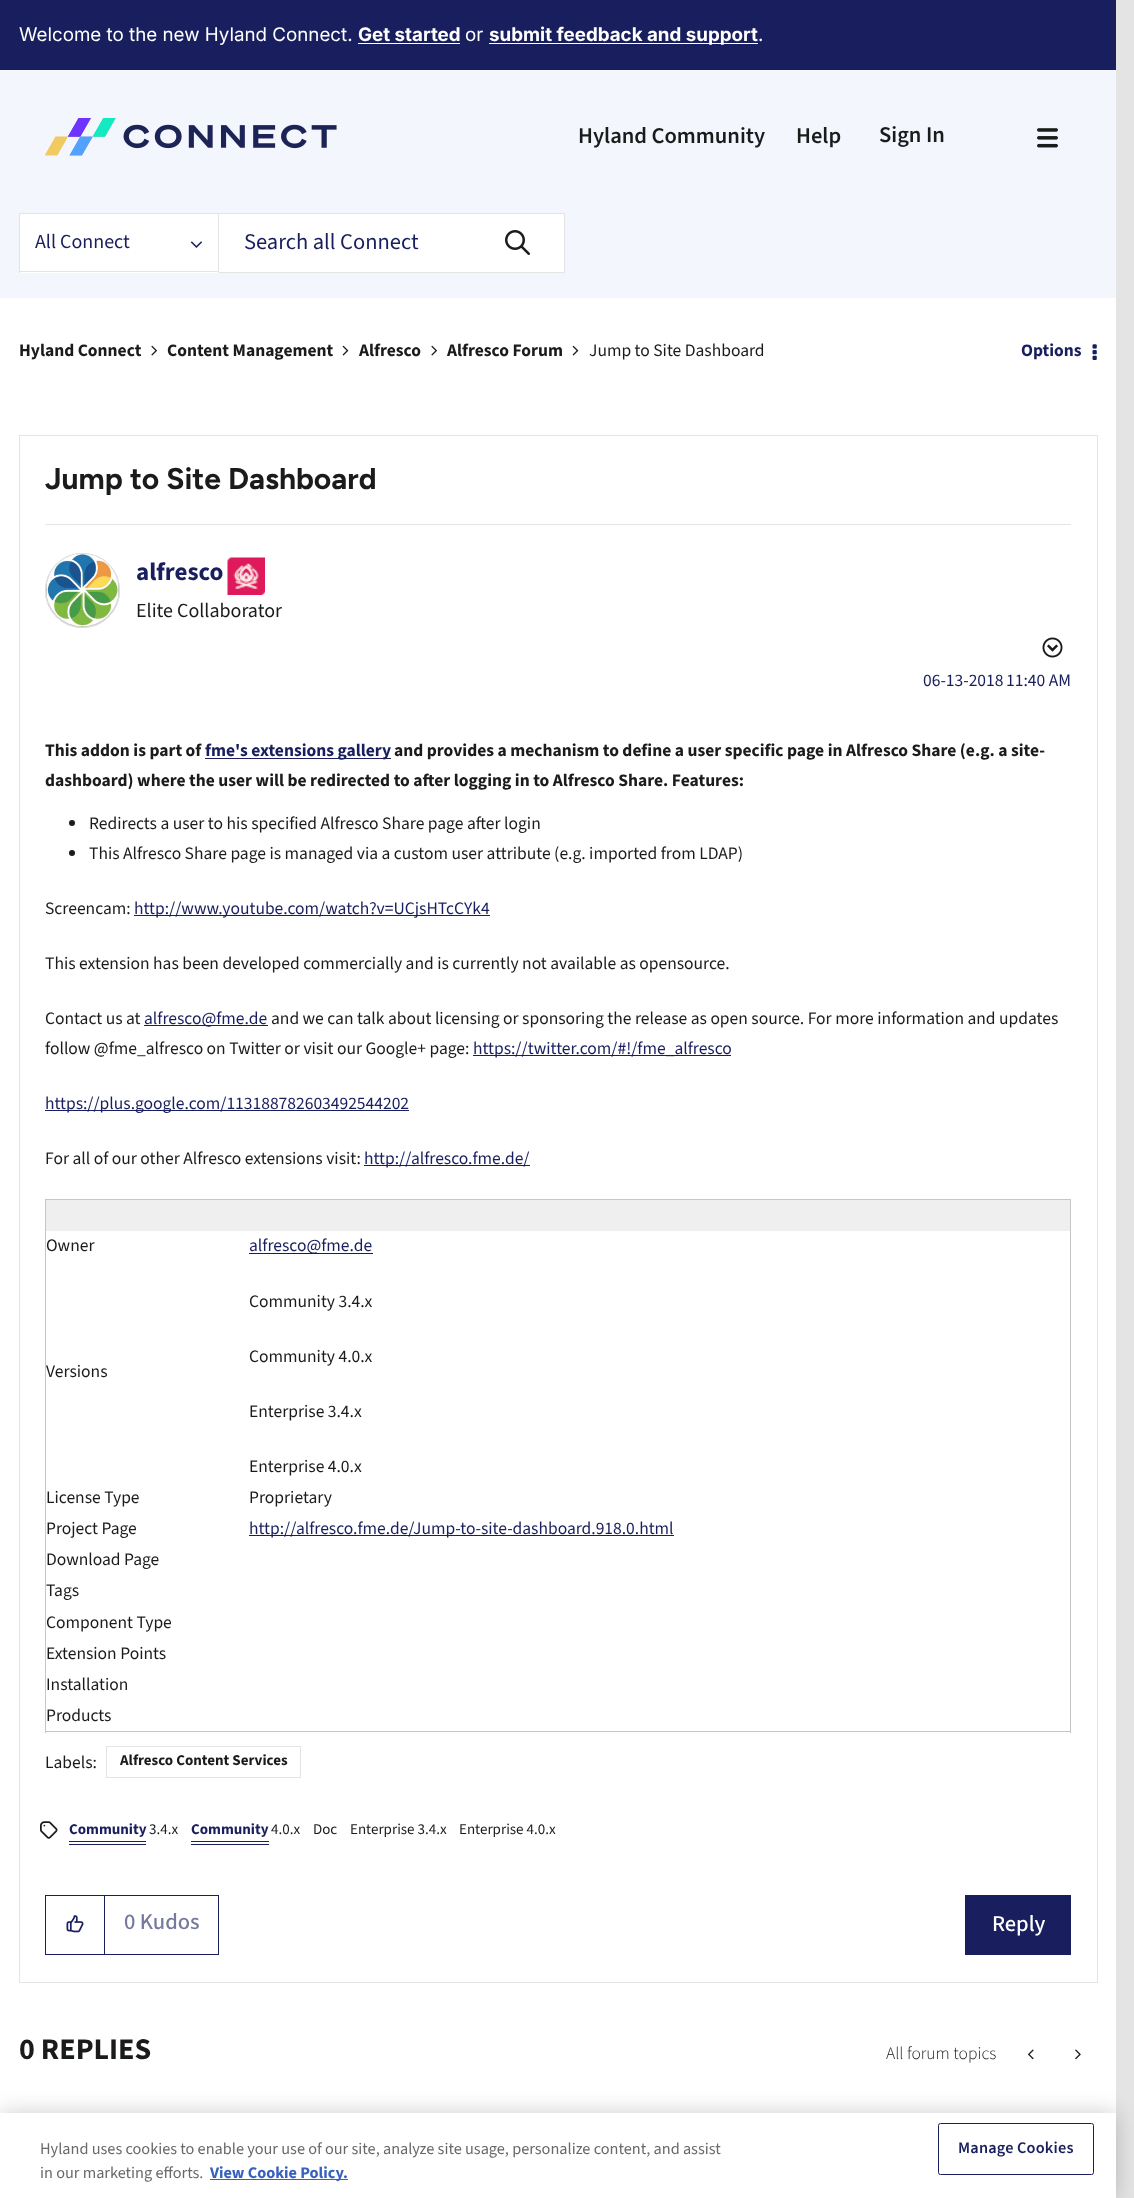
(async () => {
const canvas = document.querySelector("canvas")
canvas.width = 1134
canvas.height = 2198
const c = canvas.getContext("2d")
c.miterLimit = 4
c.fontKerning = "normal"
function T(s,x,y){c.fillText(s,x,y)}
function R(x,y,w,h){c.fillRect(x,y,w,h)}
async function I(src,x,y,w,h){const img=new Image();img.src=src;await img.decode();c.drawImage(img,x,y,w,h)}
c.fillStyle="#e4e4e4"
R(0,0,1134,2198)
c.fillStyle="#fff"
R(0,298,1116,1815)
c.fillStyle="#191f5e"
R(0,0,1116,70)
c.font="18.75px Inter"
c.fillStyle="#fff"
T("Welcome to the new Hyland Connect.",19,41)
c.font="bold 18.75px Inter"
T("Get started",358,41)
R(358,43,102,1)
c.font="18.75px Inter"
T("or",465,41)
R(489,43,269,1)
c.font="bold 18.75px Inter"
T("submit feedback and support",489,41)
c.font="18.75px Inter"
T(".",758,41)
c.fillStyle="#f4f6fe"
R(0,70,1116,228)
await I("1.png",45,118,292,38)
c.font="600 22.5px 'Source Sans 3'"
c.fillStyle="#191c1a"
T("Hyland Community",578,143)
T("Help",796,143)
T("Sign In",879,142)
await I("2.png",1037,128,21,20)
c.fillStyle="#fff"
R(20,214,198,59)
c.fillStyle="#e4e4e4"
R(19,213,199,1)
R(19,271,199,1)
R(19,213,1,60)
c.font="20px 'Source Sans 3'"
c.fillStyle="#191f5e"
T("All Connect",35,248)
await I("3.png",190,241,12,7)
c.fillStyle="#fff"
c.beginPath()
c.rect(218.5,213.5,346,59)
c.fill()
c.strokeStyle="#e4e4e4"
c.stroke()
c.font="22.5px 'Source Sans 3'"
c.fillStyle="#191f5e"
T("Search all Connect",244,249)
await I("4.png",505,230,25,25)
c.font="bold 17.5px 'Source Sans 3'"
c.fillStyle="#191c1a"
T("Hyland Connect",19,356)
await I("5.png",151,345,6,11)
T("Content Management",167,356)
await I("6.png",342,345,7,11)
T("Alfresco",359,356)
await I("5.png",431,345,6,11)
T("Alfresco Forum",447,356)
await I("6.png",572,345,7,11)
c.font="17.5px 'Source Sans 3'"
T("Jump to Site Dashboard",589,356)
c.font="bold 17.5px 'Source Sans 3'"
c.fillStyle="#191f5e"
T("Options",1021,356)
await I("7.png",1092,344,5,16)
c.strokeRect(19.5,435.5,1078,1547)
c.fillStyle="#e4e4e4"
R(45,524,1026,1)
c.font="bold 30px Figtree"
c.fillStyle="#191c1a"
T("Jump to Site Dashboard",45,489)
c.fillStyle="#c4c4c4"
c.filter="blur(0.5px)"
c.beginPath()
c.roundRect(45,553,75,75,37.5)
c.fill()
c.filter="none"
c.beginPath()
c.arc(82.5,590.5,37,0,7)
c.stroke()
await I("8.png",47,554,71,72)
c.font="bold 25px 'Source Sans 3'"
c.fillStyle="#191f5e"
T("alfresco",136,580)
await I("9.png",227,557,38,38)
c.font="20px 'Source Sans 3'"
c.fillStyle="#191c1a"
T("Elite Collaborator",136,617)
await I("10.png",1042,637,21,21)
c.font="17.5px 'Source Sans 3'"
c.fillStyle="#191f5e"
T("06-13-2018",923,686)
T("11:40 AM",1006,686)
c.font="bold 17.5px 'Source Sans 3'"
c.fillStyle="#191c1a"
T("This addon is part of",45,756)
c.fillStyle="#191f5e"
R(205,758,186,1)
T("fme's extensions gallery",205,756)
c.fillStyle="#191c1a"
T("and provides a mechanism to define a user specific page in Alfresco Share (e.g. a site-",394,756)
T("dashboard) where the user will be redirected to after logging in to Alfresco Share. Features:",45,786)
c.beginPath()
c.arc(72,823,3,0,7)
c.fill()
c.font="17.5px 'Source Sans 3'"
T("Redirects a user to his specified Alfresco Share page after login",89,829)
c.beginPath()
c.arc(72,853,3,0,7)
c.fill()
T("This Alfresco Share page is managed via a custom user attribute (e.g. imported from LDAP)",89,859)
T("Screencam:",45,914)
c.fillStyle="#191f5e"
R(134,915,356,1)
T("http://www.youtube.com/watch?v=UCjsHTcCYk4",134,914)
c.fillStyle="#191c1a"
T("This extension has been developed commercially and is currently not available as opensource.",45,969)
T("Contact us at",45,1024)
c.fillStyle="#191f5e"
R(144,1025,124,1)
T("alfresco@fme.de",144,1024)
c.fillStyle="#191c1a"
T("and we can talk about licensing or sponsoring the release as open source. For more information and updates",271,1024)
T("follow @fme_alfresco on Twitter or visit our Google+ page:",45,1054)
c.fillStyle="#191f5e"
R(473,1055,258,1)
T("https://twitter.com/#!/fme_alfresco",473,1054)
R(45,1110,364,1)
T("https://plus.google.com/113188782603492544202",45,1109)
c.fillStyle="#191c1a"
T("For all of our other Alfresco extensions visit:",45,1164)
c.fillStyle="#191f5e"
R(364,1165,166,1)
T("http://alfresco.fme.de/",364,1164)
c.fillStyle="#c6c6c6"
R(45,1199,1026,1)
R(1070,1199,1,534)
R(45,1731,1026,1)
R(45,1199,1,534)
c.fillStyle="#efefef"
R(46,1200,1024,31)
c.fillStyle="#191c1a"
T("Owner",46,1251)
c.fillStyle="#191f5e"
R(249,1253,124,1)
T("alfresco@fme.de",249,1251)
c.fillStyle="#191c1a"
T("Versions",46,1377)
T("Community 3.4.x",249,1307)
T("Community 4.0.x",249,1362)
T("Enterprise 3.4.x",249,1417)
T("Enterprise 4.0.x",249,1472)
T("License Type",46,1503)
T("Proprietary",249,1503)
T("Project Page",46,1534)
c.fillStyle="#191f5e"
R(249,1535,425,1)
T("http://alfresco.fme.de/Jump-to-site-dashboard.918.0.html",249,1534)
c.fillStyle="#191c1a"
T("Download Page",46,1565)
T("Tags",46,1596)
T("Component Type",46,1628)
T("Extension Points",46,1659)
T("Installation",46,1690)
T("Products",46,1721)
T("Labels:",45,1768)
c.strokeRect(106.5,1746.5,194,31)
c.font="bold 15px 'Source Sans 3'"
T("Alfresco Content Services",120,1765)
await I("11.png",40,1821,18,18)
c.fillStyle="#191f5e"
T("Community",69,1834)
R(69,1841,77,1)
R(69,1844,77,1)
c.font="15px 'Source Sans 3'"
c.fillStyle="#191c1a"
T("3.4.x",149,1834)
c.font="bold 15px 'Source Sans 3'"
c.fillStyle="#191f5e"
T("Community",191,1834)
R(191,1841,78,1)
R(191,1844,78,1)
c.font="15px 'Source Sans 3'"
c.fillStyle="#191c1a"
T("4.0.x",271,1834)
T("Doc",313,1834)
T("Enterprise 3.4.x",350,1834)
T("Enterprise 4.0.x",459,1834)
c.strokeStyle="#191f5e"
c.strokeRect(45.5,1895.5,173,59)
c.fillStyle="#191f5e"
R(104,1896,1,58)
await I("12.png",66,1915,18,18)
c.font="500 22.5px 'Source Sans 3'"
c.fillStyle="#75799e"
T("0 Kudos",124,1929)
c.fillStyle="#191f5e"
R(965,1895,106,60)
c.fillStyle="#fff"
T("Reply",992,1931)
c.font="bold 30px 'Source Sans 3'"
c.fillStyle="#191c1a"
T("0 REPLIES",19,2059)
c.font="300 17.5px 'Source Sans 3'"
T("All forum topics",886,2059)
await I("13.png",1028,2049,6,11)
await I("14.png",1075,2049,6,11)
c.fillStyle="#00000033"
c.filter="blur(11px)"
c.beginPath()
c.rect(0,2113,1116,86)
c.fill()
c.filter="none"
c.fillStyle="#fff"
R(0,2113,1116,85)
c.font="16.25px 'Source Sans 3'"
c.fillStyle="#696969"
T("Hyland uses cookies to enable your use of our site, analyze site usage, personalize content, and assist",40,2154)
T("in our marketing efforts.",40,2178)
c.fillStyle="#3860be"
R(210,2179,138,1)
c.font="bold 16.25px 'Source Sans 3'"
T("View Cookie Policy.",210,2178)
c.beginPath()
c.roundRect(938.5,2123.5,155,51,2)
c.stroke()
c.letterSpacing="0.2px"
c.font="600 16.25px 'Source Sans 3'"
c.fillStyle="#191f5e"
T("Manage Cookies",958,2153)
})()
